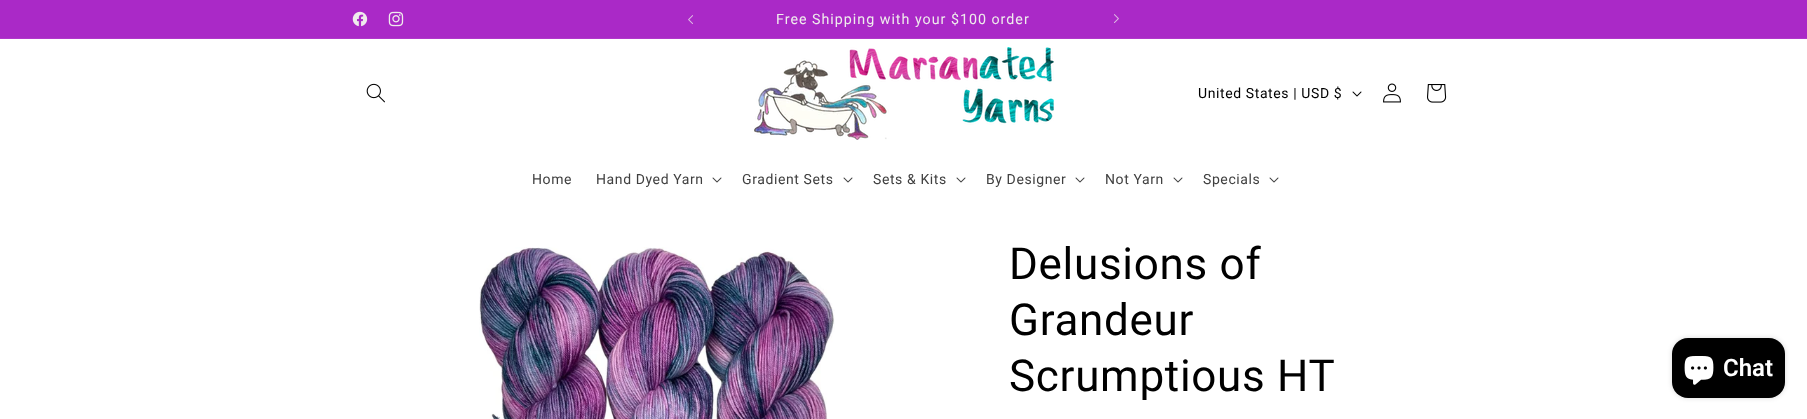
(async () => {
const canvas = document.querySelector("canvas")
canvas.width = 1807
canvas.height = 419
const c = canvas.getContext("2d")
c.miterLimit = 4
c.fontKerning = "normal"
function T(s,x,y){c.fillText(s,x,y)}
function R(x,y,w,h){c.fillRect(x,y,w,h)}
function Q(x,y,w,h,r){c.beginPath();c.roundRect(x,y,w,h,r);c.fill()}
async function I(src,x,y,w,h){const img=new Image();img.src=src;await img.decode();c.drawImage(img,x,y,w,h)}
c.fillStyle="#fff"
R(0,0,1807,419)
c.fillStyle="#aa29c7"
R(0,0,1807,38)
c.fillStyle="#b039ca"
R(0,38,1807,1)
await I("1.png",352,11,16,16)
await I("2.png",388,11,16,16)
await I("3.png",688,15,5,9)
c.letterSpacing="1px"
c.font="14.25px Roboto"
c.fillStyle="#efecec"
T("Free Shipping with your $100 order",776,24)
await I("4.png",1114,14,5,9)
await I("5.png",366,83,19,20)
await I("6.png",754,47,300,93)
c.letterSpacing="0.6px"
c.font="14px Roboto"
c.fillStyle="#000"
T("United States | USD $",1198,98)
await I("7.png",1352,91,10,6)
await I("8.png",1383,83,18,20)
await I("9.png",1427,84,20,19)
c.fillStyle="#404040"
T("Home",532,184)
T("Hand Dyed Yarn",596,184)
await I("10.png",712,177,10,6)
T("Gradient Sets",742,184)
await I("10.png",843,177,10,6)
T("Sets & Kits",873,184)
await I("10.png",956,177,10,6)
T("By Designer",986,184)
await I("10.png",1075,177,10,6)
T("Not Yarn",1105,184)
await I("10.png",1173,177,10,6)
T("Specials",1203,184)
await I("10.png",1269,177,10,6)
await I("11.png",479,247,356,172)
c.letterSpacing="0.7px"
c.font="44px Roboto"
c.fillStyle="#000"
T("Delusions of",1009,279)
T("Grandeur",1009,335)
T("Scrumptious HT",1009,391)
c.fillStyle="#00000026"
c.filter="blur(2.5px)"
c.beginPath()
c.roundRect(1672,338,113,60,16)
c.fill()
c.filter="none"
c.fillStyle="#000"
Q(1672,338,113,60,16)
await I("12.png",1684,356,30,29)
c.letterSpacing="0px"
c.font="600 24px Roboto"
c.fillStyle="#fff"
T("Chat",1723,376)
})()
